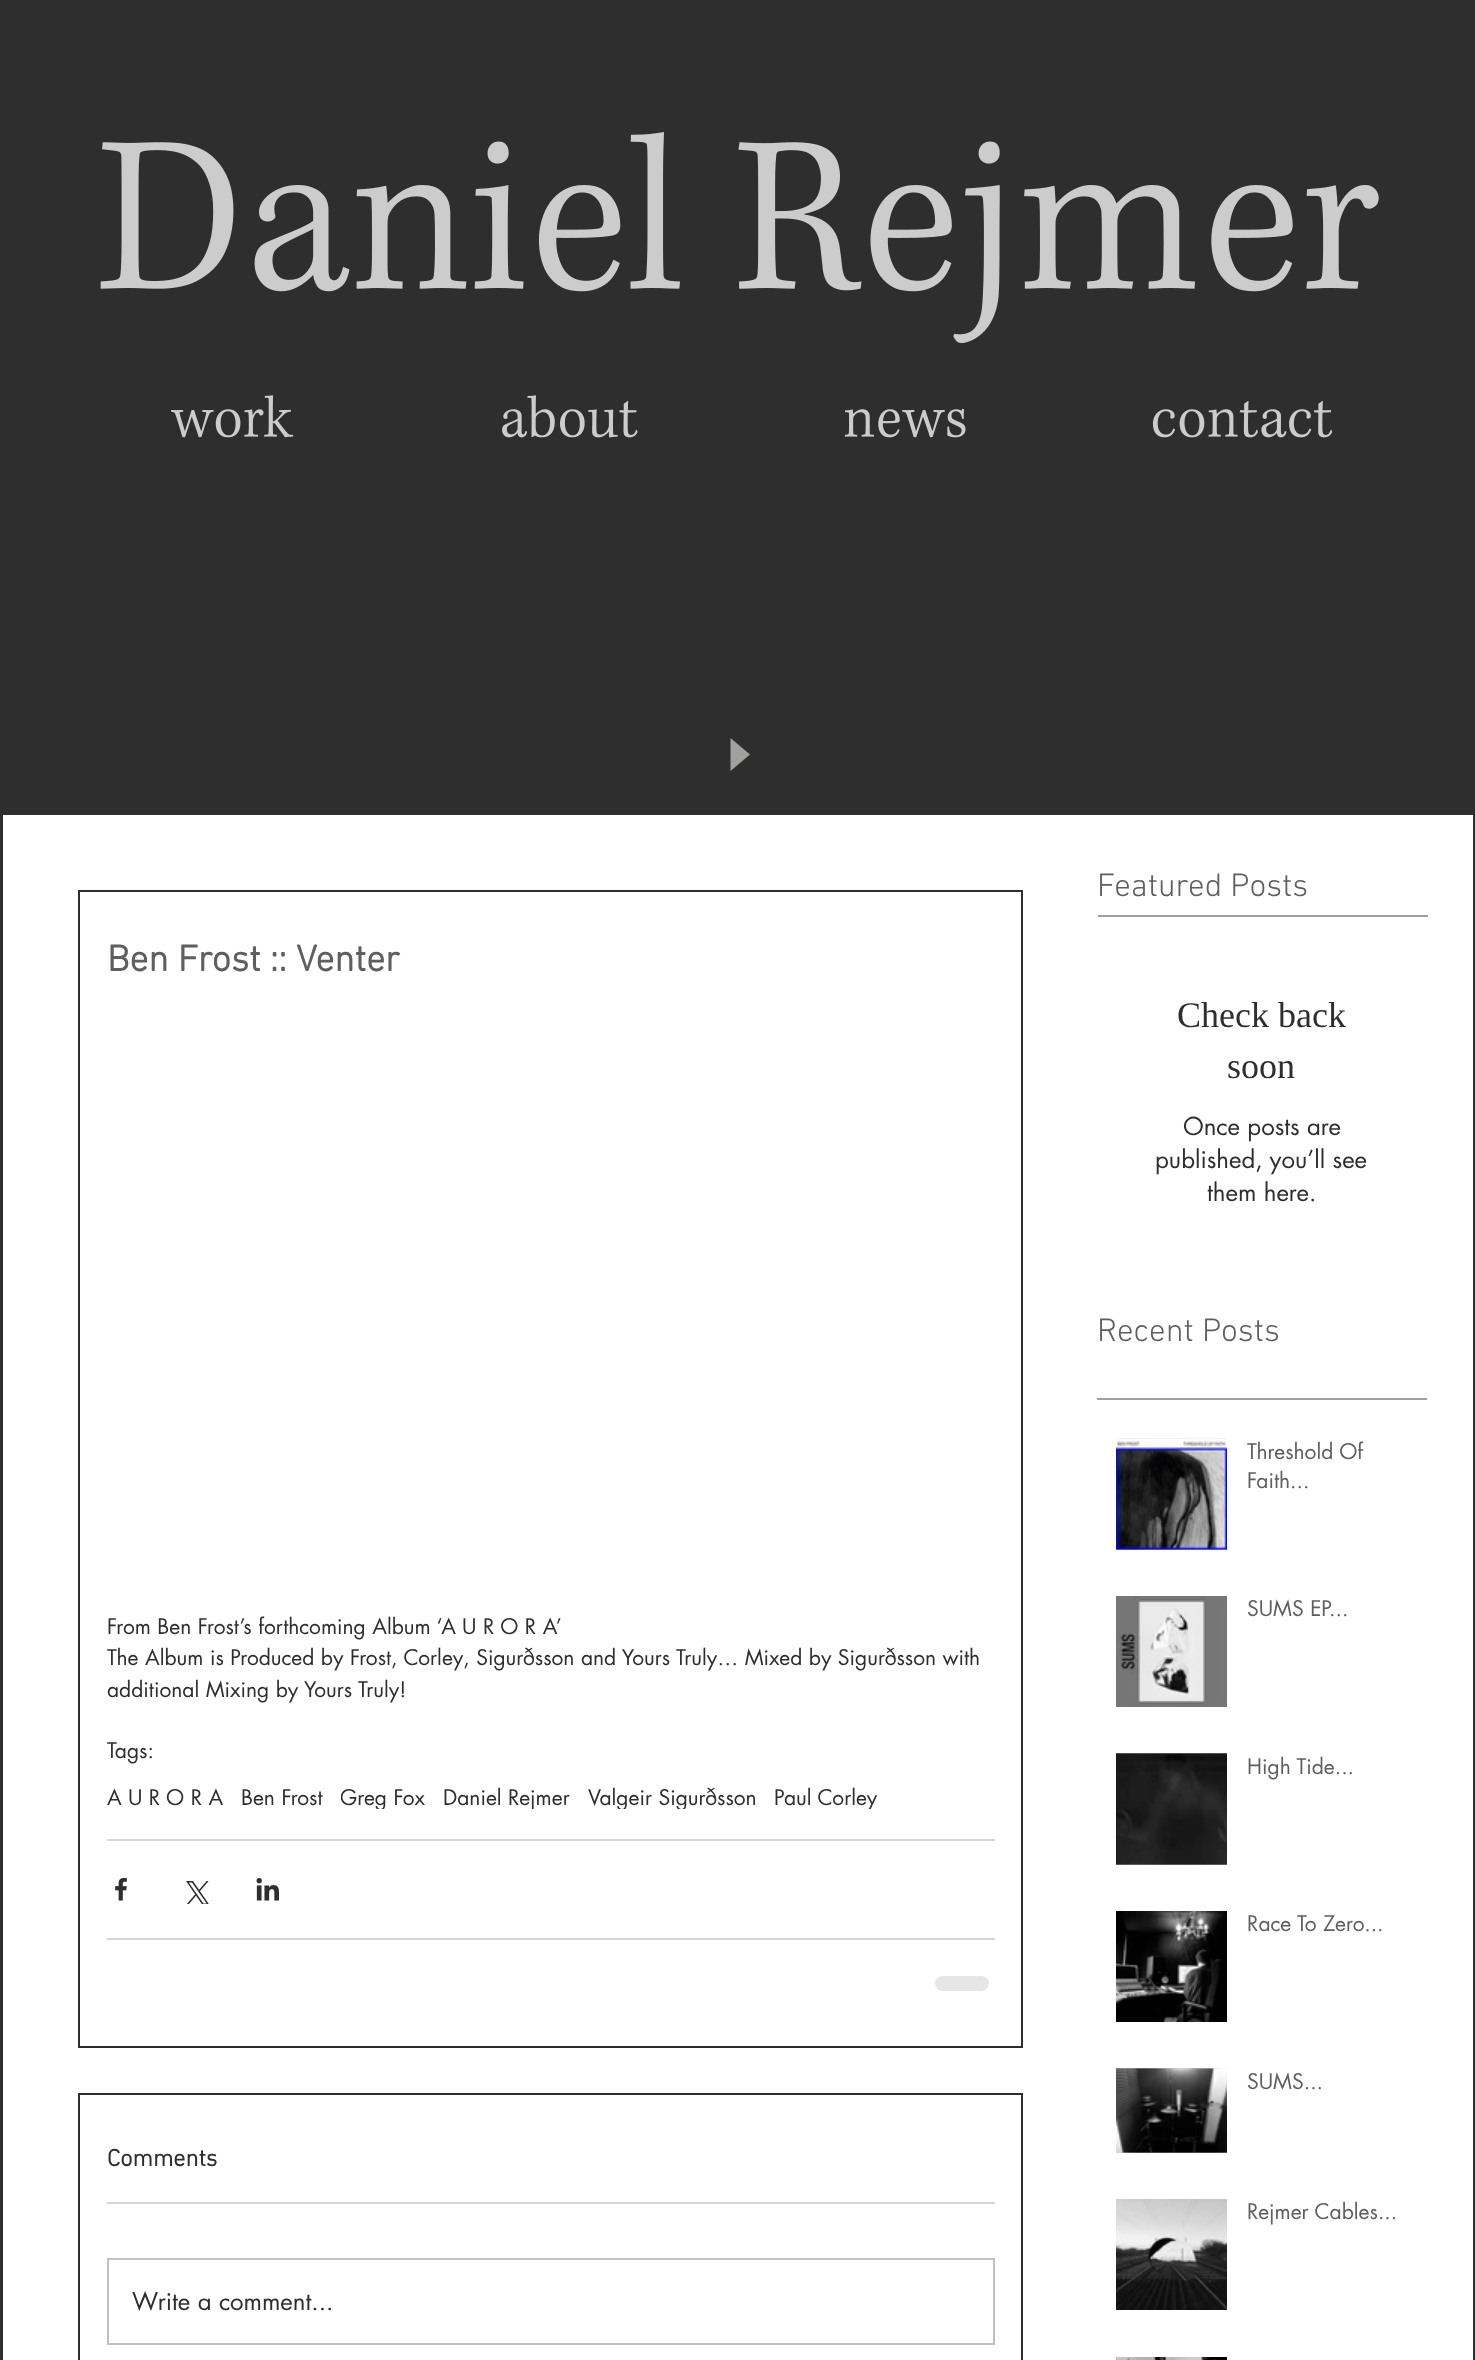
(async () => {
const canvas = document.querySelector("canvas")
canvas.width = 1475
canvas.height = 2360
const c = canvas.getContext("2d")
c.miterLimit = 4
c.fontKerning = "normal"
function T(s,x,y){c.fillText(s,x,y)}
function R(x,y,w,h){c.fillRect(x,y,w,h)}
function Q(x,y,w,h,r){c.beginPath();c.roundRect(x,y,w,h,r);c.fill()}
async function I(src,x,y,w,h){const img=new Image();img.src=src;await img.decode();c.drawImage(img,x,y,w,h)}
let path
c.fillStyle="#2f2e2e"
R(0,0,1475,2360)
await I("1.png",100,132,1279,212)
await I("2.png",171,395,123,43)
await I("3.png",502,395,136,43)
await I("4.png",844,408,122,30)
await I("5.png",1152,400,181,38)
c.fillStyle="#a0a09f"
path = new Path2D("M730.5 771v-33l19.5 16.5z")
c.fill(path)
c.fillStyle="#fff"
R(3,815,1470,1545)
c.font="300 33px 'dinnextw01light'"
c.fillStyle="#605e5e"
T("Featured Posts",1097,896)
c.fillStyle="#a0a09f"
R(1098,915,330,2)
c.strokeStyle="#2f2e2e"
c.lineWidth=2
c.strokeRect(79,891,943,1156)
c.font="bold 37.5px 'dinnextw01light'"
c.fillStyle="#605e5e"
T("Ben Frost :: Venter",107,971)
c.font="21px futura"
c.fillStyle="#2f2e2e"
T("From Ben Frost’s forthcoming Album ‘A U R O R A’",107,1634)
T("The Album is Produced by Frost, Corley, Sigurðsson and Yours Truly… Mixed by Sigurðsson with",107,1665)
T("additional Mixing by Yours Truly!",107,1697)
T("Tags:",107,1758)
T("A U R O R A",107,1805)
T("Ben Frost",241,1805)
c.save()
c.beginPath()
c.rect(341,1784,84,25)
c.clip()
T("Greg Fox",340,1805)
c.restore()
c.save()
c.beginPath()
c.rect(443,1784,127,25)
c.clip()
T("Daniel Rejmer",443,1805)
c.restore()
c.save()
c.beginPath()
c.rect(588,1784,168,25)
c.clip()
T("Valgeir Sigurðsson",588,1805)
c.restore()
c.save()
c.beginPath()
c.rect(774,1784,104,25)
c.clip()
T("Paul Corley",774,1805)
c.restore()
c.fillStyle="#d5d5d5"
R(107,1839,888,2)
await I("6.png",115,1878,12,23)
await I("7.png",186,1881,23,23)
await I("8.png",256,1878,23,23)
R(107,1938,888,2)
c.fillStyle="#e6e6e6"
Q(935,1976,54,15,7.5)
c.strokeRect(79,2094,943,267)
c.font="bold 24px 'dinnextw01light'"
c.fillStyle="#2f2e2e"
T("Comments",107,2166)
c.fillStyle="#d5d5d5"
R(107,2202,888,2)
c.strokeStyle="#c1c0c0"
c.strokeRect(108,2259,886,85)
c.font="24px futura"
c.fillStyle="#2f2e2e"
T("Write a comment...",132,2310)
c.font="36px Liberation Serif"
T("Check back",1177,1027)
T("soon",1227,1078)
c.font="24px futura"
T("Once posts are",1183,1135)
T("published, you’ll see",1155,1168)
T("them here.",1207,1201)
c.font="300 33px 'dinnextw01light'"
c.fillStyle="#605e5e"
T("Recent Posts",1097,1341)
c.fillStyle="#a0a09f"
R(1097,1398,330,2)
await I("9.png",1116,1438,111,112)
await I("10.png",1116,1438,111,112)
c.font="21px futura"
c.fillStyle="#605e5e"
T("Threshold Of",1247,1459)
T("Faith...",1247,1488)
await I("11.png",1116,1596,106,111)
await I("12.png",1222,1596,5,111)
T("SUMS EP...",1247,1616)
await I("13.png",1116,1753,111,112)
await I("14.png",1116,1753,111,112)
T("High Tide...",1247,1774)
await I("15.png",1116,1911,111,111)
T("Race To Zero...",1247,1931)
await I("16.png",1116,2068,111,85)
await I("17.png",1116,2068,111,85)
T("SUMS...",1247,2089)
await I("18.png",1116,2199,111,111)
T("Rejmer Cables...",1247,2219)
await I("19.png",1116,2357,111,3)
})()
